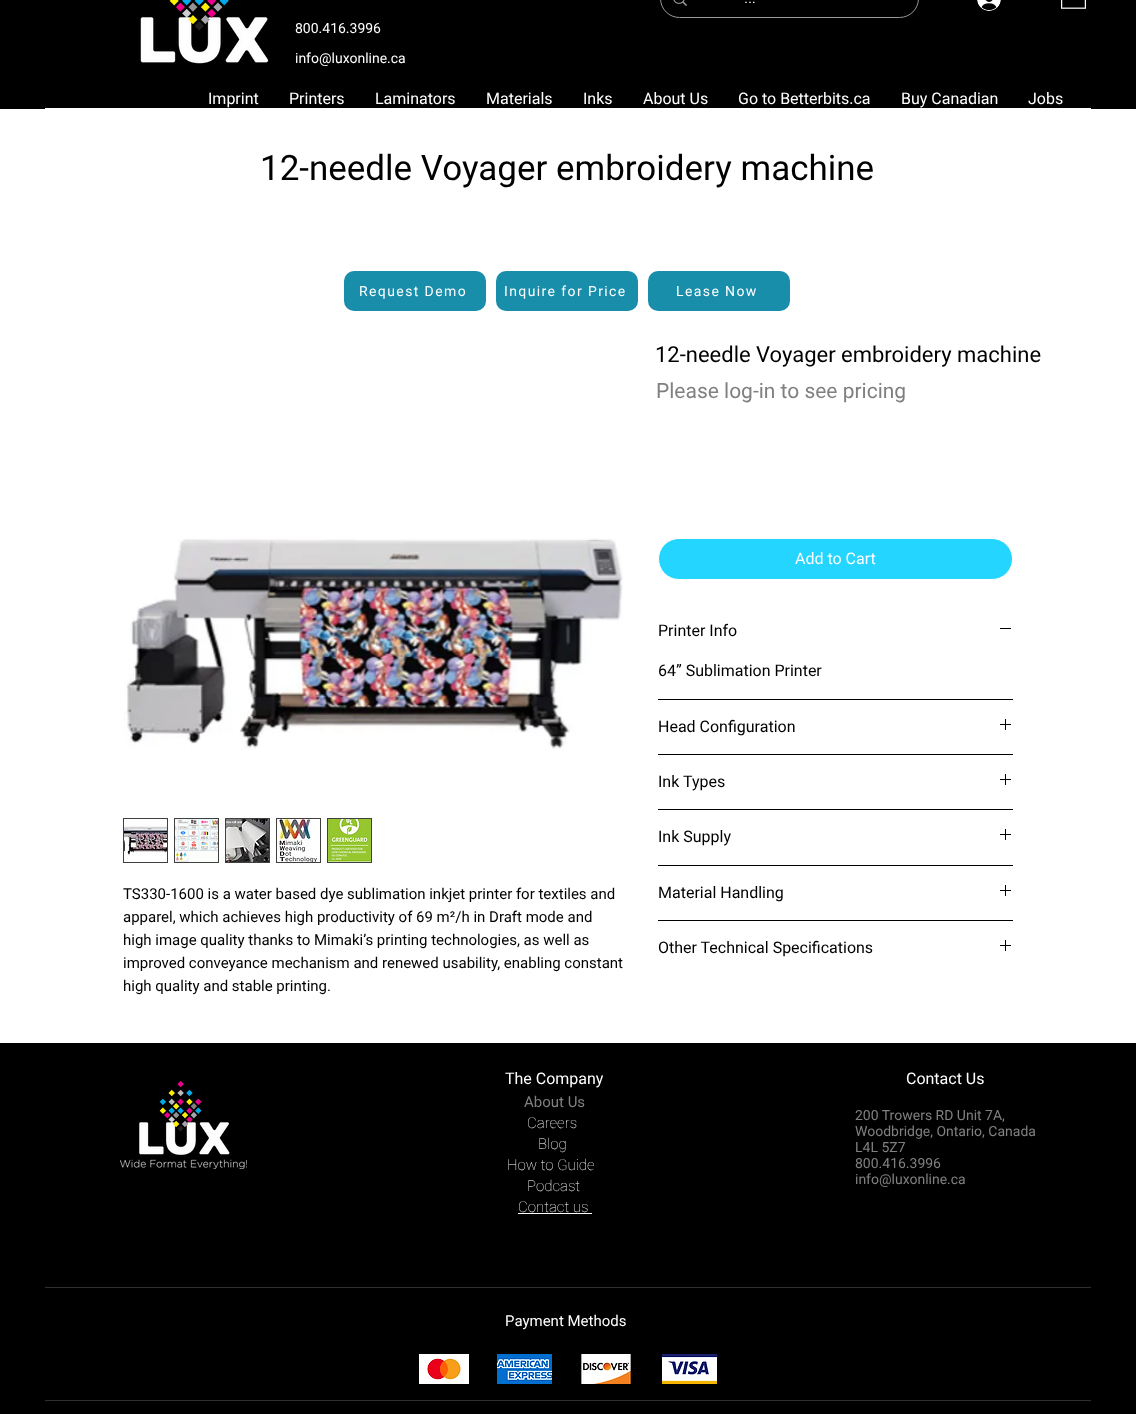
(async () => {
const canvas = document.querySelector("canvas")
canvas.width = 1136
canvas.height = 1414
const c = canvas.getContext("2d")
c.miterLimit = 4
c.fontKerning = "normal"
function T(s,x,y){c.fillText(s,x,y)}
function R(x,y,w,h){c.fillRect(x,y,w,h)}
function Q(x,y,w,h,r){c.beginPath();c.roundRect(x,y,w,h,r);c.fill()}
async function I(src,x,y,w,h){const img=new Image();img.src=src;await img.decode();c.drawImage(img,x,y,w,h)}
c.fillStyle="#000"
R(0,0,1136,1414)
c.beginPath()
c.roundRect(660.5,-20.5,258,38,19)
c.strokeStyle="#999"
c.stroke()
await I("1.png",673,0,14,6)
c.font="300 15px 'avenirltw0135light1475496'"
c.fillStyle="#fff"
T("...",744,3)
await I("2.png",977,0,24,11)
await I("3.png",1061,0,25,9)
c.font="16px Roboto"
T("Imprint",208,104)
T("Printers",289,104)
T("Laminators",375,104)
T("Materials",486,104)
T("Inks",583,104)
T("About Us",643,104)
T("Go to Betterbits.ca",738,104)
T("Buy Canadian",901,104)
T("Jobs",1028,104)
await I("4.png",140,0,129,64)
c.font="14px Roboto"
T("800.416.3996",295,33)
T("info@luxonline.ca",295,63)
R(45,108,1046,1)
R(0,109,1136,934)
c.font="35px Roboto"
c.fillStyle="#000"
T("12-needle Voyager embroidery machine",260,180)
c.fillStyle="#188eaa"
Q(344,271,142,40,10)
c.letterSpacing="1.4px"
c.font="14px Roboto"
c.fillStyle="#fff"
T("Request Demo",359,296)
c.fillStyle="#188eaa"
Q(496,271,142,40,10)
c.fillStyle="#fff"
T("Inquire for Price",504,296)
c.fillStyle="#188eaa"
Q(648,271,142,40,10)
c.fillStyle="#fff"
T("Lease Now",676,296)
c.letterSpacing="0px"
c.font="22px Roboto"
c.fillStyle="#000"
T("12-needle Voyager embroidery machine",655,362)
c.font="21px Roboto"
c.fillStyle="#808080"
T("Please log-in to see pricing",656,398)
await I("5.png",124,538,499,211)
c.fillStyle="#404040"
R(123,818,45,45)
await I("6.png",124,819,43,43)
R(174,818,45,45)
await I("7.png",175,819,43,43)
R(225,818,45,45)
await I("8.png",226,819,43,43)
R(276,818,45,45)
await I("9.png",277,819,43,43)
R(327,818,45,45)
await I("10.png",328,819,43,43)
c.font="15px Roboto"
c.fillStyle="#000"
T("TS330-1600 is a water based dye sublimation inkjet printer for textiles and",123,899)
T("apparel, which achieves high productivity of 69 m²/h in Draft mode and",123,922)
T("high image quality thanks to Mimaki’s printing technologies, as well as",123,945)
T("improved conveyance mechanism and renewed usability, enabling constant",123,968)
T("high quality and stable printing.",123,991)
c.fillStyle="#24d5ff"
c.beginPath()
c.roundRect(658.5,538.5,354,41,20.5)
c.fill()
c.strokeStyle="#fff"
c.stroke()
c.font="16px Roboto"
c.fillStyle="#fff"
T("Add to Cart",795,564)
c.fillStyle="#000"
R(658,699,355,1)
T("Printer Info",658,636)
R(1000,628,11,1)
T("64” Sublimation Printer",658,676)
R(658,754,355,1)
T("Head Configuration",658,732)
await I("11.png",1000,719,11,11)
R(658,809,355,1)
T("Ink Types",658,787)
await I("11.png",1000,774,11,11)
R(658,865,355,1)
T("Ink Supply",658,842)
await I("11.png",1000,829,11,11)
R(658,920,355,1)
T("Material Handling",658,898)
await I("11.png",1000,885,11,11)
T("Other Technical Specifications",658,953)
await I("11.png",1000,940,11,11)
await I("12.png",120,1081,127,88)
c.fillStyle="#fff"
T("The Company",505,1084)
c.font="15px Roboto"
c.fillStyle="#808080"
T("About Us",524,1107)
c.font="100 15px Roboto"
c.fillStyle="#fff"
T("Careers",527,1128)
T("Blog",538,1149)
T("How to Guide",507,1170)
T("Podcast",527,1191)
T("Contact us",518,1212)
R(518,1213,74,1)
c.font="16px Roboto"
T("Contact Us",906,1084)
c.font="14px Roboto"
c.fillStyle="#808080"
T("200 Trowers RD Unit 7A,",855,1120)
T("Woodbridge, Ontario, Canada",855,1136)
T("L4L 5Z7",855,1152)
T("800.416.3996",855,1168)
T("info@luxonline.ca",855,1184)
c.fillStyle="#303030"
R(45,1287,1046,1)
c.font="15px Roboto"
c.fillStyle="#fff"
T("Payment Methods",505,1326)
await I("13.png",419,1354,50,30)
await I("14.png",497,1354,55,30)
await I("15.png",581,1354,50,30)
await I("16.png",662,1354,55,30)
c.fillStyle="#303030"
R(45,1400,1046,1)
})()
